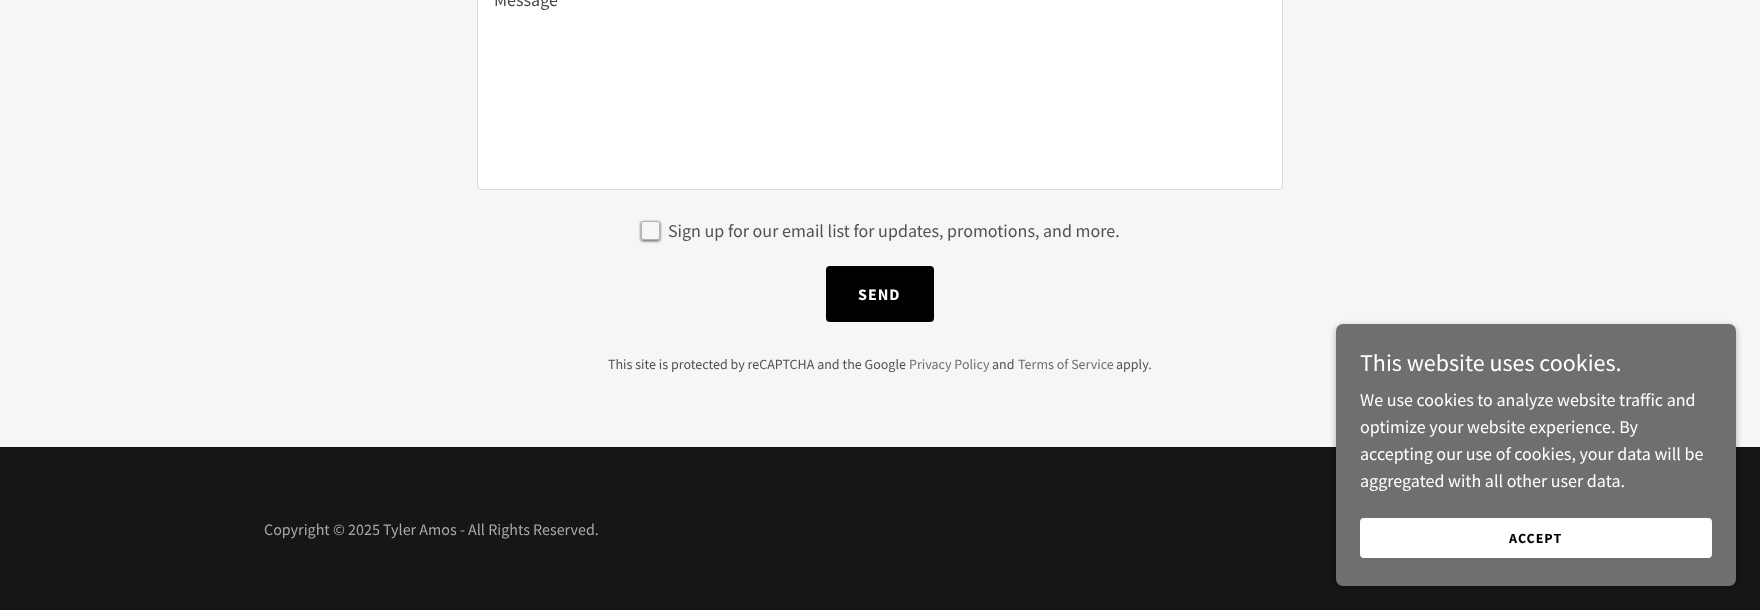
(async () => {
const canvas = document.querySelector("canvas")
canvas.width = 1760
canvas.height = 610
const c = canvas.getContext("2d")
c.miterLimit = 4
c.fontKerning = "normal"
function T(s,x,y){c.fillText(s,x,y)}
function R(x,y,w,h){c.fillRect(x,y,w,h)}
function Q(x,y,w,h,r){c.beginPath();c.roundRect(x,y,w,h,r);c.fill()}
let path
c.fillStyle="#161616"
R(0,0,1760,610)
c.fillStyle="#f6f6f6"
R(0,0,1760,447)
c.fillStyle="#fff"
c.beginPath()
c.roundRect(477.5,-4.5,805,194,3.5)
c.fill()
c.strokeStyle="#dadada"
c.stroke()
c.font="18px Source Sans Pro"
c.fillStyle="#474747"
T("Message",494,6)
c.save()
path = new Path2D("M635 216h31v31h-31zm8 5h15c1 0 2 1 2 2v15c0 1-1 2-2 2h-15c-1 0-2-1-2-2v-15c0-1 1-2 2-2z")
c.clip(path,"evenodd")
c.fillStyle="#525252"
c.filter="blur(1.5px)"
c.beginPath()
c.roundRect(641,222,19,19,2)
c.fill()
c.filter="none"
c.restore()
c.beginPath()
c.roundRect(641.5,221.5,18,18,1.5)
c.strokeStyle="#6f6f6f80"
c.stroke()
c.fillStyle="#525252"
T("Sign up for our email list for updates, promotions, and more.",668,237)
c.fillStyle="#000"
Q(826,266,108,56,4)
c.letterSpacing="1px"
c.font="bold 16px Source Sans Pro"
c.fillStyle="#fff"
T("SEND",858,300)
c.letterSpacing="0px"
c.font="14px Source Sans Pro"
c.fillStyle="#525252"
T("This site is protected by reCAPTCHA and the Google",608,369)
c.fillStyle="#6f6f6f"
T("Privacy Policy",909,369)
c.fillStyle="#525252"
T("and",992,369)
c.fillStyle="#6f6f6f"
T("Terms of Service",1018,369)
c.fillStyle="#525252"
T("apply.",1116,369)
c.font="16px Source Sans Pro"
c.fillStyle="#a9a9a9"
T("Copyright © 2025 Tyler Amos - All Rights Reserved.",264,535)
c.fillStyle="#0000004d"
c.filter="blur(3px)"
c.beginPath()
c.roundRect(1336,326,400,262,7)
c.fill()
c.filter="none"
c.fillStyle="#6f6f6f"
Q(1336,324,400,262,7)
c.font="24px Source Sans Pro"
c.fillStyle="#fff"
T("This website uses cookies.",1360,371)
c.font="18px Source Sans Pro"
T("We use cookies to analyze website traffic and",1360,406)
T("optimize your website experience. By",1360,433)
T("accepting our use of cookies, your data will be",1360,460)
T("aggregated with all other user data.",1360,487)
Q(1360,518,352,40,4)
c.letterSpacing="1px"
c.font="bold 14px Source Sans Pro"
c.fillStyle="#000"
T("ACCEPT",1509,543)
})()
